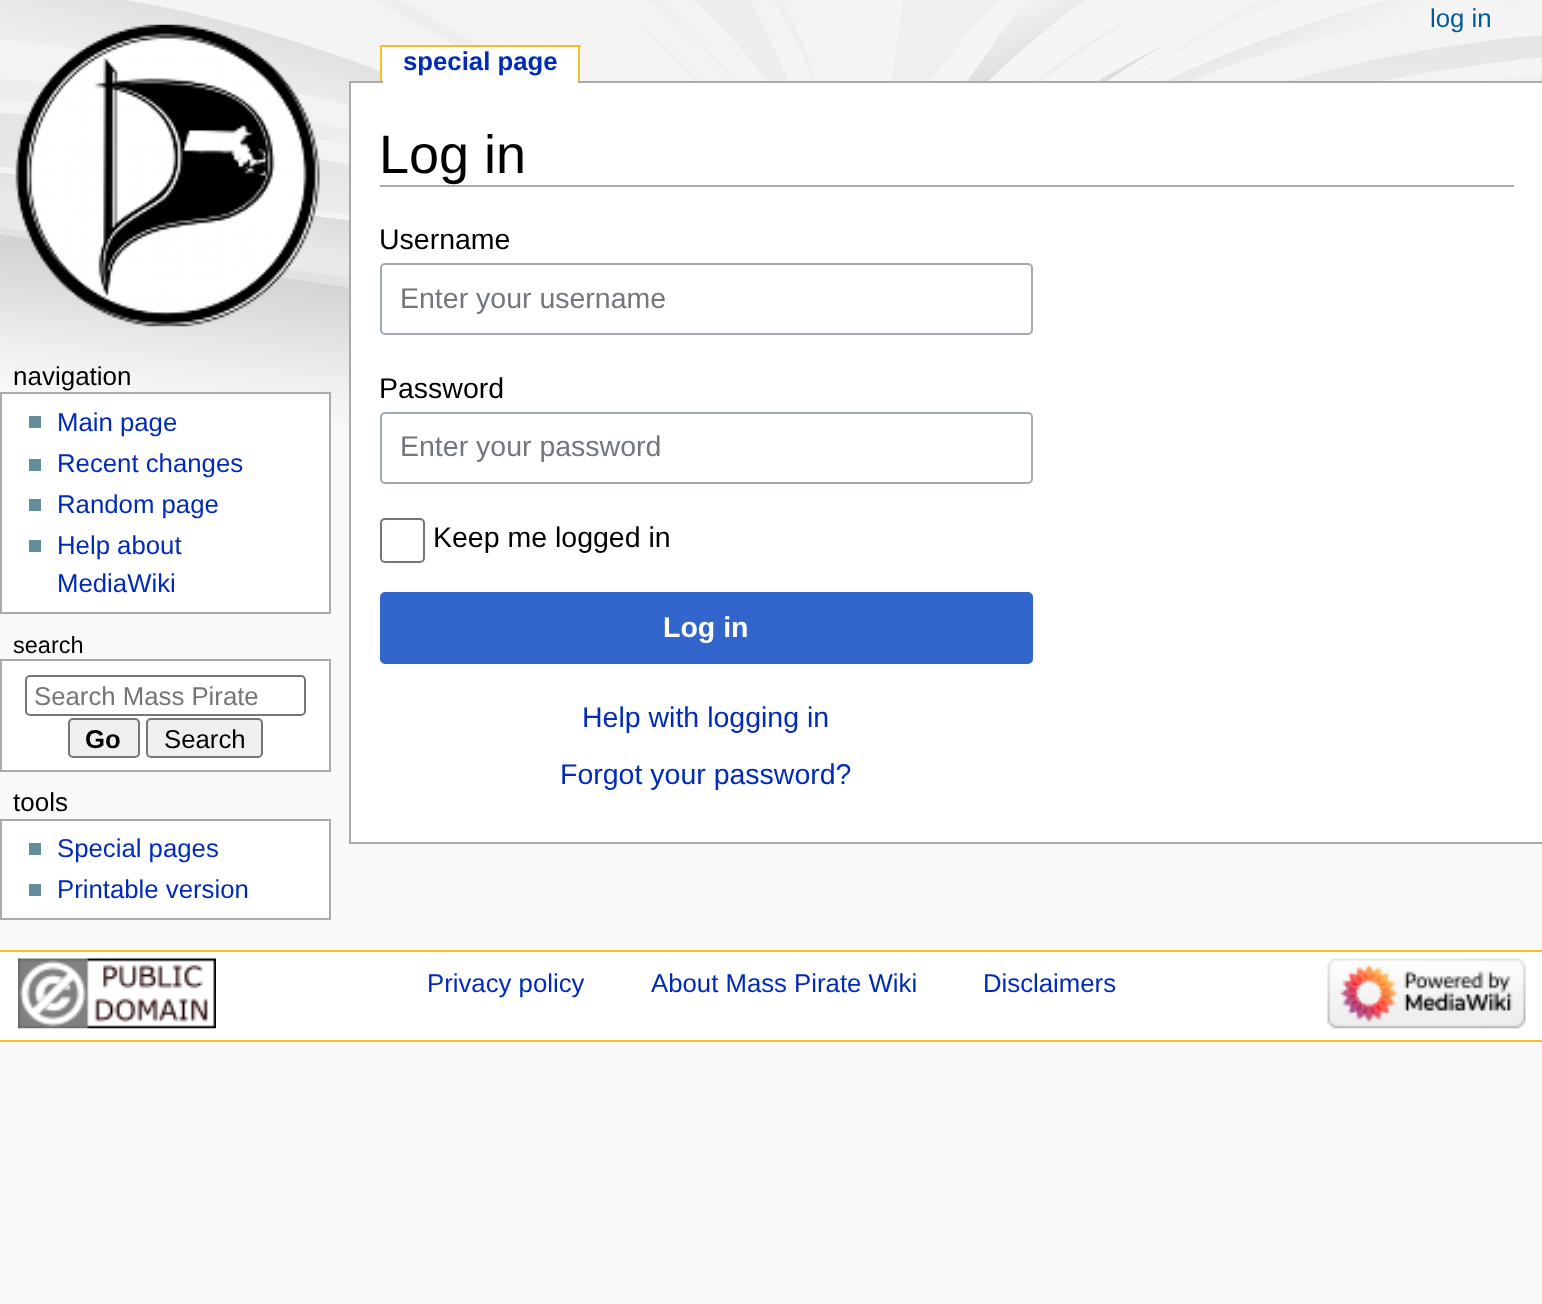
(async () => {
const canvas = document.querySelector("canvas")
canvas.width = 1542
canvas.height = 1304
const c = canvas.getContext("2d")
c.miterLimit = 4
c.fontKerning = "normal"
function T(s,x,y){c.fillText(s,x,y)}
function R(x,y,w,h){c.fillRect(x,y,w,h)}
async function I(src,x,y,w,h){const img=new Image();img.src=src;await img.decode();c.drawImage(img,x,y,w,h)}
c.fillStyle="#f9f9f9"
R(0,0,1542,1304)
await I("1.png",0,0,1542,471)
c.font="25.75px Liberation Sans"
c.fillStyle="#005896"
T("log in",1430,27)
await I("2.png",15,24,305,303)
c.fillStyle="#fff"
R(382,47,199,34)
c.font="bold 25.75px Liberation Sans"
c.fillStyle="#002bb8"
T("special page",403,70)
c.fillStyle="#fabd23"
R(380,45,201,2)
R(578,45,2,36)
R(380,45,2,36)
c.fillStyle="#aaa"
R(349,81,1193,2)
c.fillStyle="#fff"
R(383,81,195,2)
c.font="26px Liberation Sans"
c.fillStyle="#000"
T("navigation",13,385)
c.fillStyle="#fff"
c.beginPath()
c.rect(1,393,329,220)
c.fill()
c.strokeStyle="#aaa"
c.lineWidth=2
c.stroke()
c.fillStyle="#638c9c"
R(29,416,12,12)
c.font="25.75px Liberation Sans"
c.fillStyle="#002bb8"
T("Main page",57,431)
c.fillStyle="#638c9c"
R(29,459,12,12)
c.fillStyle="#002bb8"
T("Recent changes",57,472)
c.fillStyle="#638c9c"
R(29,499,12,12)
c.fillStyle="#002bb8"
T("Random page",57,513)
c.fillStyle="#638c9c"
R(29,540,12,12)
c.fillStyle="#002bb8"
T("Help about",57,554)
T("MediaWiki",57,592)
c.font="23.5px Liberation Sans"
c.fillStyle="#000"
T("search",13,653)
c.fillStyle="#fff"
c.beginPath()
c.rect(1,660,329,111)
c.fill()
c.stroke()
c.beginPath()
c.roundRect(26,676,279,39,4)
c.strokeStyle="#767676"
c.stroke()
c.font="25.75px Liberation Sans"
c.fillStyle="#757575"
T("Search Mass Pirate",34,705)
c.fillStyle="#efefef"
c.beginPath()
c.roundRect(69,719,70,38,4)
c.fill()
c.stroke()
c.font="bold 25.75px Liberation Sans"
c.fillStyle="#000"
T("Go",85,748)
c.fillStyle="#efefef"
c.beginPath()
c.roundRect(147,719,115,38,4)
c.fill()
c.stroke()
c.font="25.75px Liberation Sans"
c.fillStyle="#000"
T("Search",164,748)
c.font="26px Liberation Sans"
T("tools",13,811)
c.fillStyle="#fff"
c.beginPath()
c.rect(1,820,329,99)
c.fill()
c.strokeStyle="#aaa"
c.stroke()
c.fillStyle="#638c9c"
R(29,843,12,12)
c.font="25.75px Liberation Sans"
c.fillStyle="#002bb8"
T("Special pages",57,857)
c.fillStyle="#638c9c"
R(29,884,12,12)
c.fillStyle="#002bb8"
T("Printable version",57,898)
c.fillStyle="#fff"
R(351,83,1191,759)
c.fillStyle="#aaa"
R(349,842,1193,2)
R(349,81,2,763)
R(380,185,1134,2)
c.font="54px Liberation Sans"
c.fillStyle="#000"
T("Log in",379,173)
c.font="28.5px Liberation Sans"
T("Username",379,249)
c.beginPath()
c.roundRect(381,264,651,70,4)
c.strokeStyle="#a2a9b1"
c.stroke()
c.fillStyle="#72777d"
T("Enter your username",400,308)
c.fillStyle="#000"
T("Password",379,398)
c.beginPath()
c.roundRect(381,413,651,70,4)
c.stroke()
c.fillStyle="#72777d"
T("Enter your password",400,456)
c.beginPath()
c.roundRect(381,519,43,43,4)
c.strokeStyle="#72777d"
c.stroke()
c.fillStyle="#000"
T("Keep me logged in",433,547)
c.fillStyle="#36c"
c.beginPath()
c.roundRect(381,593,651,70,4)
c.fill()
c.strokeStyle="#36c"
c.stroke()
c.font="bold 28.5px Liberation Sans"
c.fillStyle="#fff"
T("Log in",663,637)
c.font="28.5px Liberation Sans"
c.fillStyle="#002bb8"
T("Help with logging in",582,727)
T("Forgot your password?",560,784)
c.fillStyle="#fff"
R(0,952,1542,88)
c.fillStyle="#fabd23"
R(0,950,1542,2)
R(0,1040,1542,2)
await I("3.png",18,958,198,71)
c.font="25.75px Liberation Sans"
c.fillStyle="#002bb8"
T("Privacy policy",427,992)
T("About Mass Pirate Wiki",651,992)
T("Disclaimers",983,992)
await I("4.png",1327,958,199,71)
})()
